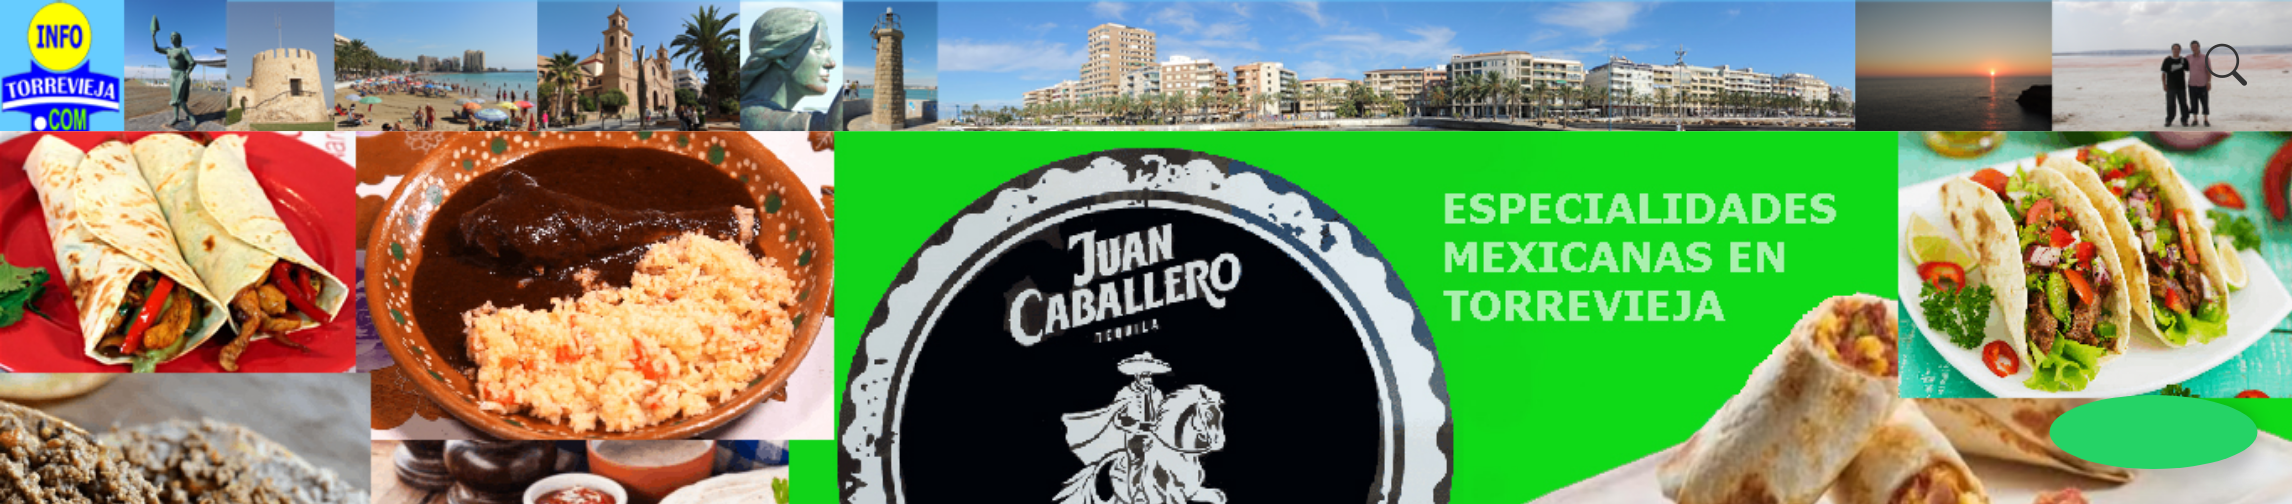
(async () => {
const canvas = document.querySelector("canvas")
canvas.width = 2292
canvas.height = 504
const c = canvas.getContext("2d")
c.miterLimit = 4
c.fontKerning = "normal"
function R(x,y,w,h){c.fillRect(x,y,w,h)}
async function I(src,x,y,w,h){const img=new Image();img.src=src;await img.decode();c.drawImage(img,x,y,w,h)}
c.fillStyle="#fff"
R(0,0,2292,504)
await I("1.png",0,0,2292,132)
await I("2.png",2205,43,42,43)
await I("3.png",0,131,2292,373)
c.fillStyle="#00000033"
c.filter="blur(9px)"
c.beginPath()
c.roundRect(2049,403,209,73,36.5)
c.fill()
c.filter="none"
c.fillStyle="#25d366"
c.beginPath()
c.ellipse(2153.5,432,104,37,0,0,7)
c.fill()
})()
